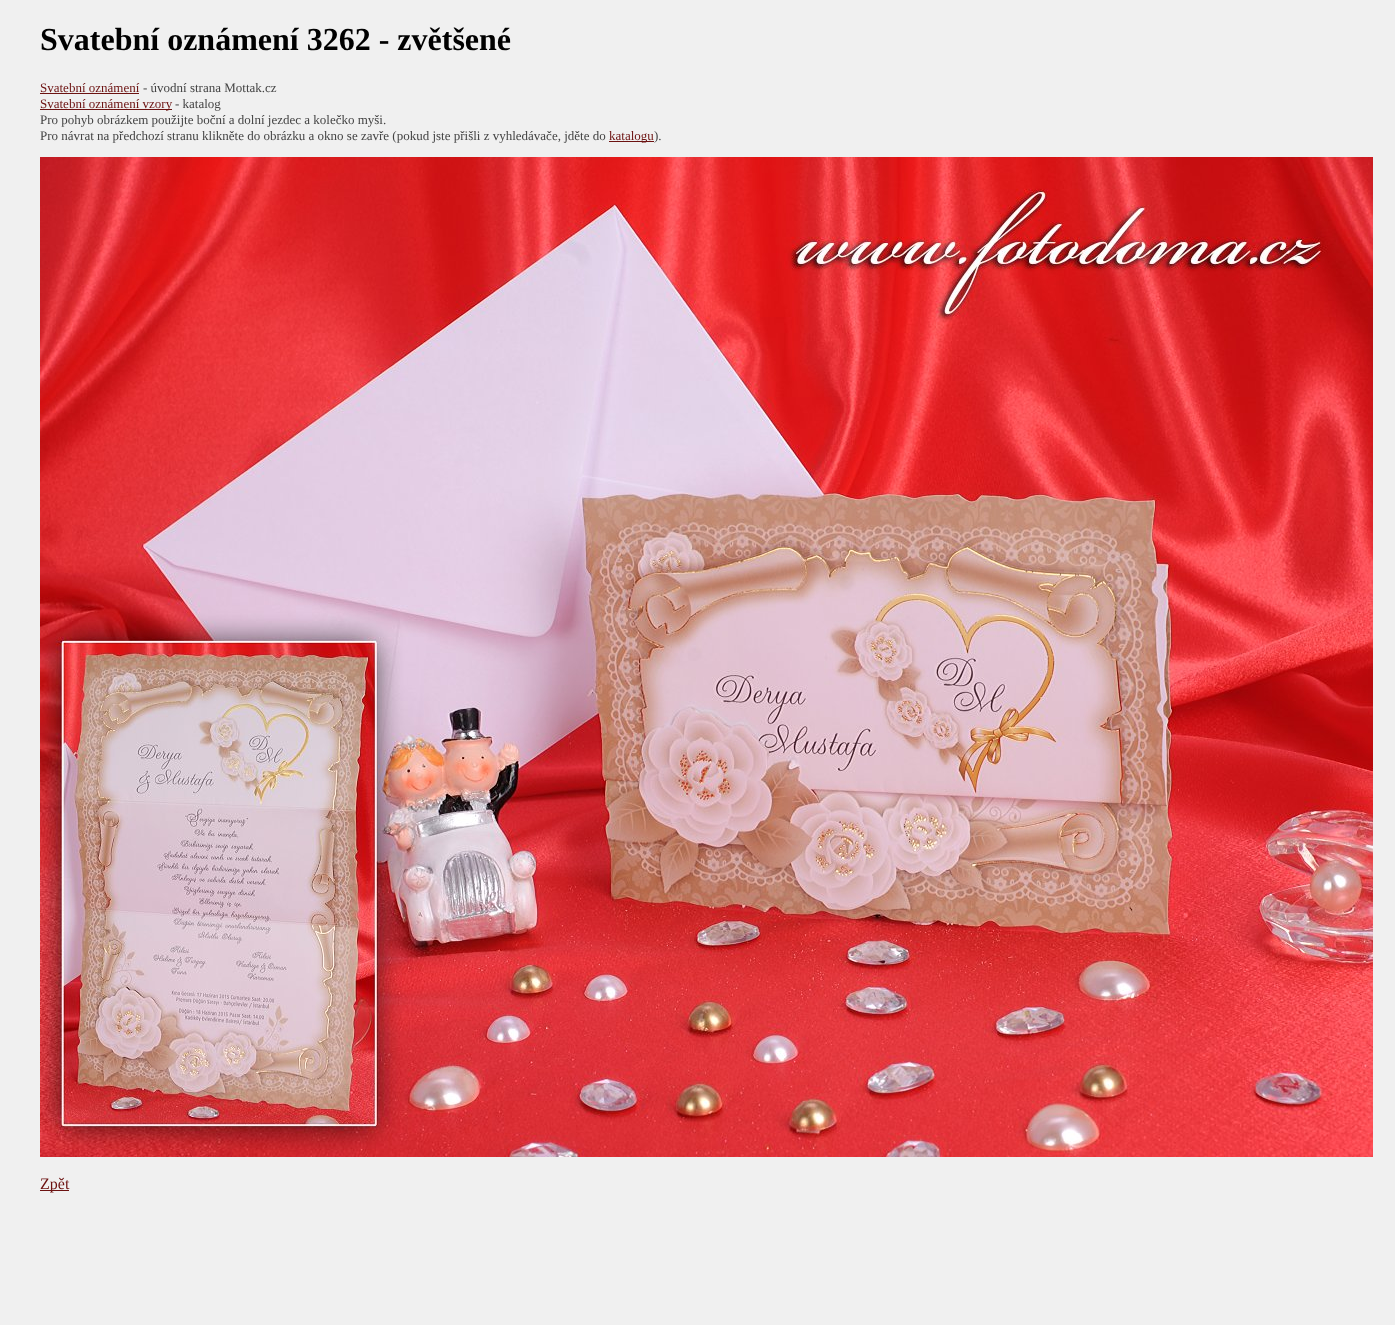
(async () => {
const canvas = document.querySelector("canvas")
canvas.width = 1395
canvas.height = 1325
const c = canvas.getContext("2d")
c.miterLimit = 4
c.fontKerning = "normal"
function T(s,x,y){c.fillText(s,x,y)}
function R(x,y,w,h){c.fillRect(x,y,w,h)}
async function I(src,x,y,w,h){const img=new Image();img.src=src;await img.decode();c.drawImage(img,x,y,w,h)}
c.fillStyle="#f0f0f0"
R(0,0,1395,1325)
c.font="bold 32px Liberation Serif"
c.fillStyle="#000"
T("Svatební oznámení 3262 - zvětšené",40,50)
c.font="13px Liberation Serif"
c.fillStyle="#6c1211"
T("Svatební oznámení",40,92)
R(40,93,99,1)
c.fillStyle="#444"
T("- úvodní strana Mottak.cz",143,92)
c.fillStyle="#6c1211"
R(40,109,132,1)
T("Svatební oznámení vzory",40,108)
c.fillStyle="#444"
T("- katalog",175,108)
T("Pro pohyb obrázkem použijte boční a dolní jezdec a kolečko myši.",40,124)
T("Pro návrat na předchozí stranu klikněte do obrázku a okno se zavře (pokud jste přišli z vyhledávače, jděte do",40,140)
c.fillStyle="#6c1211"
R(609,141,45,1)
T("katalogu",609,140)
c.fillStyle="#444"
T(").",654,140)
await I("1.png",40,157,1333,1000)
c.fillStyle="#6c1211"
R(40,1190,29,1)
c.font="16px Liberation Serif"
T("Zpět",40,1189)
})()
